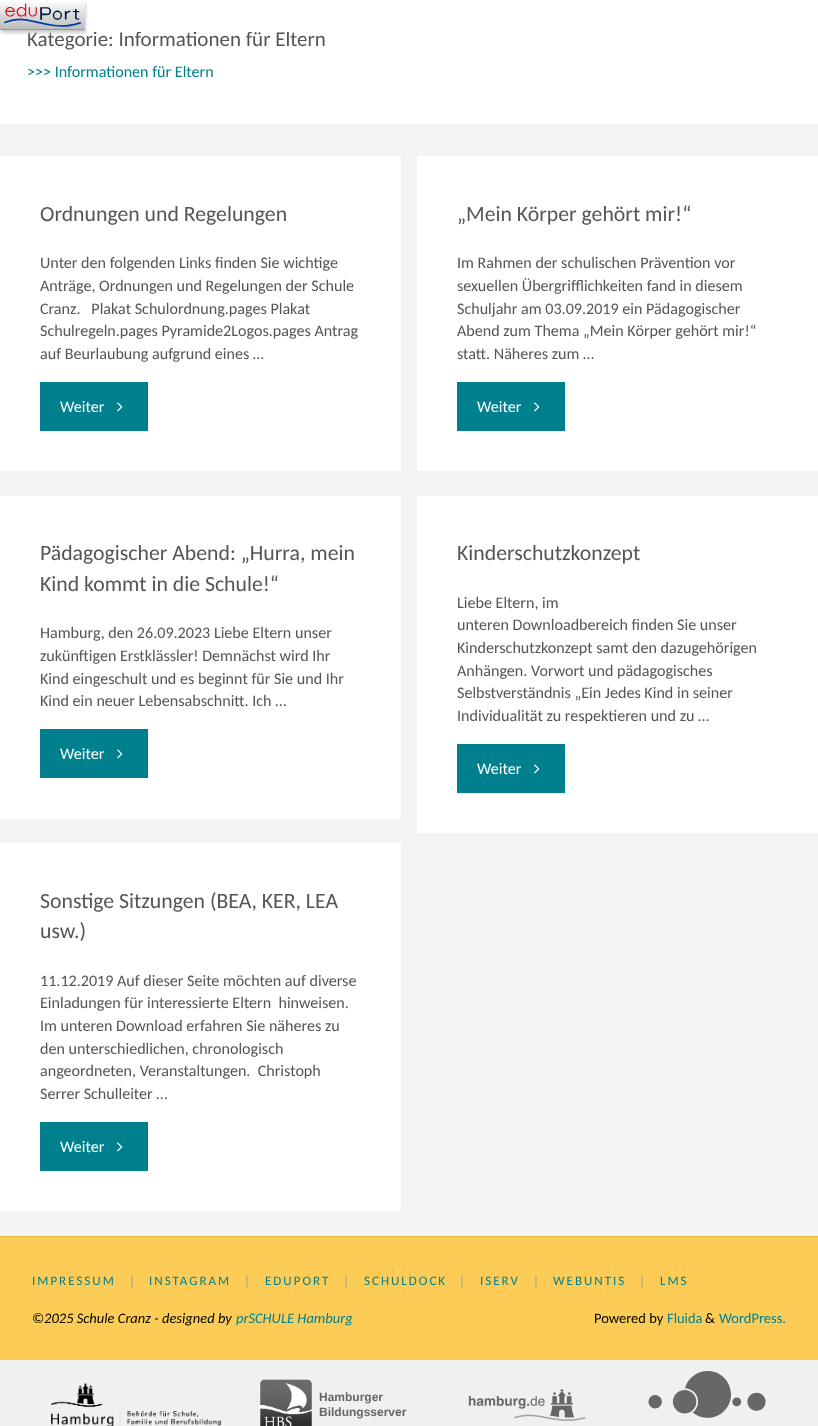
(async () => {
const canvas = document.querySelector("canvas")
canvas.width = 818
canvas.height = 1426
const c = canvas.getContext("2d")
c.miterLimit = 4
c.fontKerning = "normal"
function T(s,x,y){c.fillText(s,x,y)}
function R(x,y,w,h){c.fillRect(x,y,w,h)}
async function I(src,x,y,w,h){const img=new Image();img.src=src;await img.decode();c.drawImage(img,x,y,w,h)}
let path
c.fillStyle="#f3f3f3"
R(0,0,818,1426)
c.fillStyle="#fff"
R(0,32,818,92)
c.font="21px Carlito"
c.fillStyle="#555"
T("Kategorie: Informationen für Eltern",27,46)
c.fillStyle="#fff"
R(0,0,818,32)
c.save()
path = new Path2D("M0 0h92v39h-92zm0 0h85v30h-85z")
c.clip(path,"evenodd")
c.fillStyle="#ccc"
c.filter="blur(1.5px)"
c.beginPath()
c.rect(1,3,85,30)
c.fill()
c.filter="none"
c.restore()
await I("1.png",0,2,85,28)
c.font="16.1px Carlito"
c.fillStyle="#00808e"
T(">>> Informationen für Eltern",27,77)
c.fillStyle="#fff"
R(0,156,401,315)
c.font="21.75px Carlito"
c.fillStyle="#555"
T("Ordnungen und Regelungen",40,221)
c.font="16.1px Carlito"
T("Unter den folgenden Links finden Sie wichtige",40,268)
T("Anträge, Ordnungen und Regelungen der Schule",40,291)
T("Cranz.   Plakat Schulordnung.pages Plakat",40,314)
T("Schulregeln.pages Pyramide2Logos.pages Antrag",40,336)
T("auf Beurlaubung aufgrund eines …",40,359)
c.fillStyle="#00808e"
R(40,382,108,49)
c.fillStyle="#fff"
T("Weiter",60,412)
await I("2.png",117,402,6,10)
R(417,156,401,315)
c.font="21.75px Carlito"
c.fillStyle="#555"
T("„Mein Körper gehört mir!“",457,221)
c.font="16.1px Carlito"
T("Im Rahmen der schulischen Prävention vor",457,268)
T("sexuellen Übergrifflichkeiten fand in diesem",457,291)
T("Schuljahr am 03.09.2019 ein Pädagogischer",457,314)
T("Abend zum Thema „Mein Körper gehört mir!“",457,336)
T("statt. Näheres zum …",457,359)
c.fillStyle="#00808e"
R(457,382,108,49)
c.fillStyle="#fff"
T("Weiter",477,412)
await I("2.png",534,402,6,10)
R(0,496,401,323)
c.font="21.75px Carlito"
c.fillStyle="#555"
T("Pädagogischer Abend: „Hurra, mein",40,560)
T("Kind kommt in die Schule!“",40,591)
c.font="16.1px Carlito"
T("Hamburg, den 26.09.2023 Liebe Eltern unser",40,638)
T("zukünftigen Erstklässler! Demnächst wird Ihr",40,661)
T("Kind eingeschult und es beginnt für Sie und Ihr",40,684)
T("Kind ein neuer Lebensabschnitt. Ich …",40,706)
c.fillStyle="#00808e"
R(40,729,108,49)
c.fillStyle="#fff"
T("Weiter",60,759)
await I("2.png",117,749,6,10)
R(417,496,401,337)
c.font="21.75px Carlito"
c.fillStyle="#555"
T("Kinderschutzkonzept",457,560)
c.font="16.1px Carlito"
T("Liebe Eltern, im",457,608)
T("unteren Downloadbereich finden Sie unser",457,630)
T("Kinderschutzkonzept samt den dazugehörigen",457,653)
T("Anhängen. Vorwort und pädagogisches",457,676)
T("Selbstverständnis „Ein Jedes Kind in seiner",457,698)
T("Individualität zu respektieren und zu …",457,721)
c.fillStyle="#00808e"
R(457,744,108,49)
c.fillStyle="#fff"
T("Weiter",477,774)
await I("2.png",534,764,6,10)
R(0,843,401,368)
c.font="21.75px Carlito"
c.fillStyle="#555"
T("Sonstige Sitzungen (BEA, KER, LEA",40,908)
T("usw.)",40,938)
c.font="16.1px Carlito"
T("11.12.2019 Auf dieser Seite möchten auf diverse",40,986)
T("Einladungen für interessierte Eltern  hinweisen.",40,1008)
T("Im unteren Download erfahren Sie näheres zu",40,1031)
T("den unterschiedlichen, chronologisch",40,1054)
T("angeordneten, Veranstaltungen.  Christoph",40,1076)
T("Serrer Schulleiter …",40,1099)
c.fillStyle="#00808e"
R(40,1122,108,49)
c.fillStyle="#fff"
T("Weiter",60,1152)
await I("2.png",117,1142,6,10)
c.fillStyle="#fccc56"
R(0,1237,818,123)
c.fillStyle="#e8b842"
R(0,1236,818,1)
c.letterSpacing="2px"
c.font="13px Carlito"
c.fillStyle="#00808e"
T("IMPRESSUM",32,1285)
c.fillStyle="#9a9a9a"
T("|",129,1285)
c.fillStyle="#00808e"
T("INSTAGRAM",149,1285)
c.fillStyle="#9a9a9a"
T("|",244,1285)
c.fillStyle="#00808e"
T("EDUPORT",265,1285)
c.fillStyle="#9a9a9a"
T("|",343,1285)
c.fillStyle="#00808e"
T("SCHULDOCK",364,1285)
c.fillStyle="#9a9a9a"
T("|",459,1285)
c.fillStyle="#00808e"
T("ISERV",480,1285)
c.fillStyle="#9a9a9a"
T("|",533,1285)
c.fillStyle="#00808e"
T("WEBUNTIS",553,1285)
c.fillStyle="#9a9a9a"
T("|",639,1285)
c.fillStyle="#00808e"
T("LMS",660,1285)
c.letterSpacing="0px"
c.font="italic 14.5px Carlito"
c.fillStyle="#000"
T("©2025 Schule Cranz - designed by",32,1323)
c.fillStyle="#00808e"
T("prSCHULE Hamburg",236,1323)
c.font="14.5px Carlito"
c.fillStyle="#000"
T("Powered by",594,1323)
c.fillStyle="#00808e"
T("Fluida",667,1323)
c.fillStyle="#000"
T("&",705,1323)
c.fillStyle="#00808e"
T("WordPress.",719,1323)
c.fillStyle="#f0f0f0"
R(0,1360,818,66)
await I("3.png",51,1383,170,43)
await I("4.png",260,1379,52,47)
c.font="bold 12px Liberation Sans"
c.fillStyle="#666"
T("Hamburger",319,1401)
T("Bildungsserver",319,1416)
await I("5.png",468,1389,118,32)
await I("6.png",648,1371,118,47)
})()
